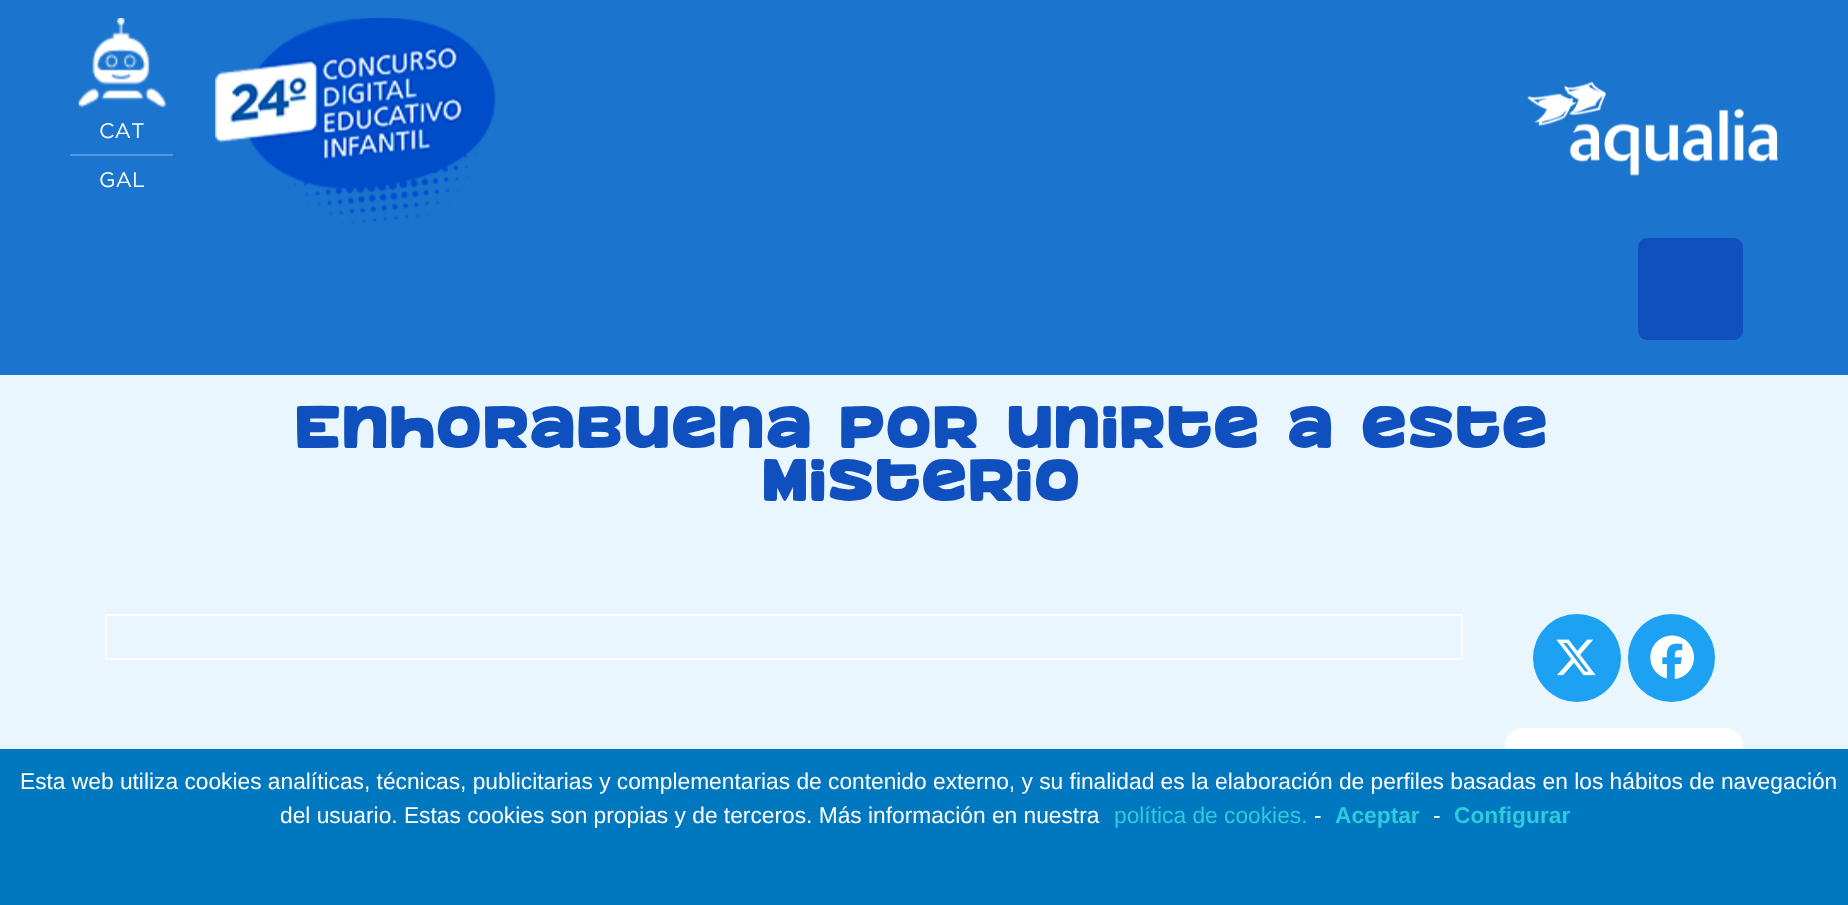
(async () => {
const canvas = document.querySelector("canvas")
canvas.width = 1848
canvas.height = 905
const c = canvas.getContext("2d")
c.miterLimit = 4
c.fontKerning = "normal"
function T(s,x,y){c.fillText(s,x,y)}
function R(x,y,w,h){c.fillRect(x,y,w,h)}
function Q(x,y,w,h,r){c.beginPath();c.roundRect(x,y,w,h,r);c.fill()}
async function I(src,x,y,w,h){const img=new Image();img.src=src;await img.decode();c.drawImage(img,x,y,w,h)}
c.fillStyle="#eaf6fe"
R(0,0,1848,905)
c.fillStyle="#1b75cf"
R(0,0,1848,375)
await I("1.png",78,18,89,90)
c.font="21px Gotham"
c.fillStyle="#fff"
T("CAT",99,138)
c.fillStyle="#5498db"
R(70,154,103,2)
c.fillStyle="#fff"
T("GAL",99,187)
await I("2.png",215,18,281,206)
await I("3.png",1527,81,251,95)
c.fillStyle="#0f50be"
Q(1638,238,105,102,9)
c.font="52.5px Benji"
T("Enhorabuena por unirte a este",297,448)
T("misterio",764,501)
c.strokeStyle="#fff"
c.lineWidth=2
c.strokeRect(106,615,1356,44)
c.fillStyle="#1da1f2"
c.beginPath()
c.arc(1577,658,44,0,7)
c.fill()
await I("4.png",1556,639,40,37)
Q(1628,614,87,88,43.5)
await I("5.png",1650,635,44,44)
c.fillStyle="#fff"
Q(1505,728,238,130,18)
c.fillStyle="#0078bf"
R(0,749,1848,156)
c.font="22.75px Liberation Sans"
c.fillStyle="#fff"
T("Esta web utiliza cookies analíticas, técnicas, publicitarias y complementarias de contenido externo, y su finalidad es la elaboración de perfiles basadas en los hábitos de navegación",20,789)
T("del usuario. Estas cookies son propias y de terceros. Más información en nuestra",280,823)
c.fillStyle="#2dcbdc"
T("política de cookies.",1114,823)
c.fillStyle="#fff"
T("-",1314,823)
c.font="bold 22.75px Liberation Sans"
c.fillStyle="#2dcbdc"
T("Aceptar",1335,823)
c.font="22.75px Liberation Sans"
c.fillStyle="#fff"
T("-",1433,823)
c.font="bold 22.75px Liberation Sans"
c.fillStyle="#2dcbdc"
T("Configurar",1454,823)
})()
